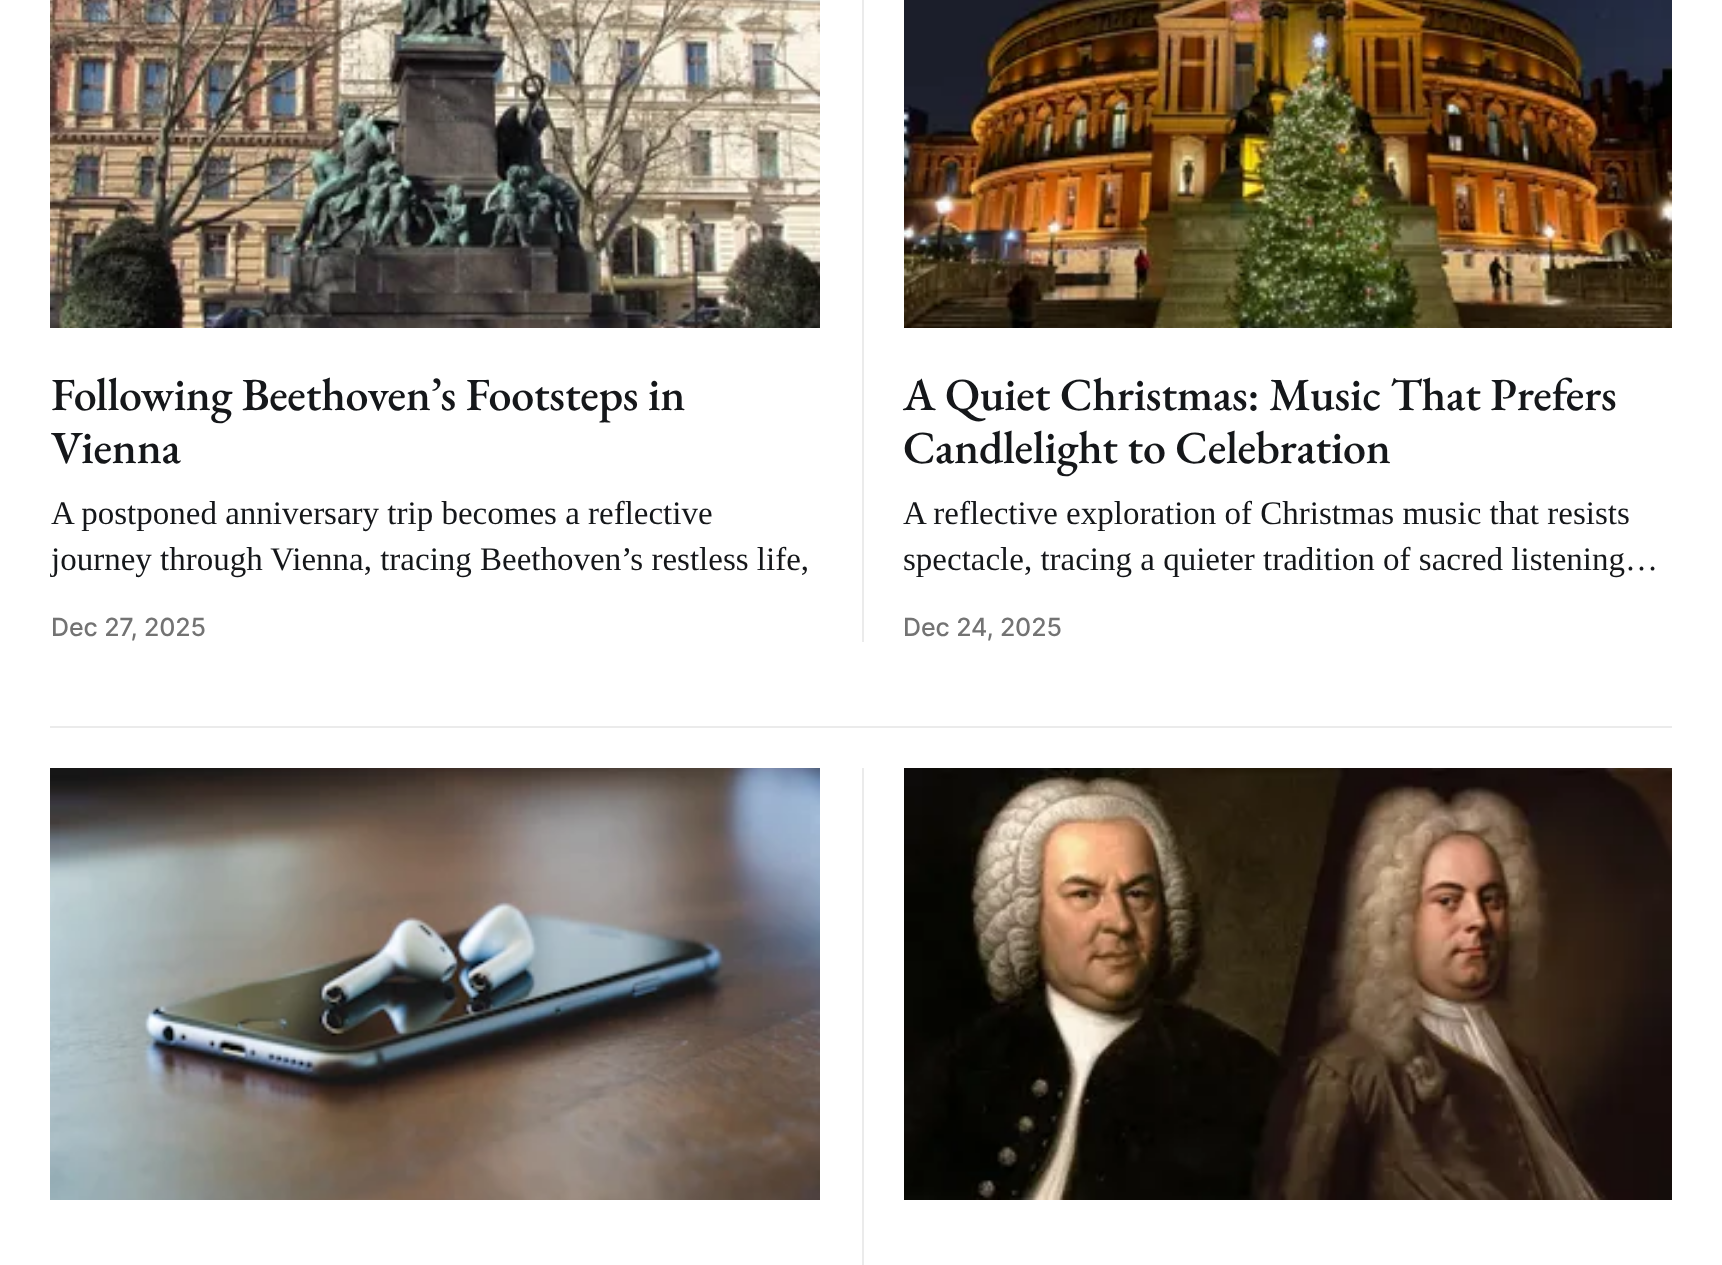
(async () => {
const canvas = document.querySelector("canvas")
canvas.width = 1722
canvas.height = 1265
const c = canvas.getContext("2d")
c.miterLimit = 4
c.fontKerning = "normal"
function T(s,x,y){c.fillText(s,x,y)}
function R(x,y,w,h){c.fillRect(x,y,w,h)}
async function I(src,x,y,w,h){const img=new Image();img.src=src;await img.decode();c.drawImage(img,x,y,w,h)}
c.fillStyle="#fff"
R(0,0,1722,1265)
await I("1.png",50,0,770,328)
c.letterSpacing="-0.3px"
c.font="500 46px EB Garamond"
c.fillStyle="#15171a"
T("Following Beethoven’s Footsteps in",51,410)
T("Vienna",51,463)
c.letterSpacing="0px"
c.font="33px Liberation Serif"
T("A postponed anniversary trip becomes a reflective",51,524)
c.save()
c.beginPath()
c.rect(50,490,770,92)
c.clip()
T("journey through Vienna, tracing Beethoven’s restless life,",51,570)
c.restore()
c.letterSpacing="-0.1px"
c.font="500 25px Inter"
c.fillStyle="#737373"
T("Dec 27, 2025",51,636)
c.fillStyle="#ebebeb"
R(862,0,2,642)
await I("2.png",904,0,768,328)
c.letterSpacing="-0.3px"
c.font="500 46px EB Garamond"
c.fillStyle="#15171a"
T("A Quiet Christmas: Music That Prefers",903,410)
T("Candlelight to Celebration",903,463)
c.letterSpacing="0px"
c.font="33px Liberation Serif"
T("A reflective exploration of Christmas music that resists",903,524)
T("spectacle, tracing a quieter tradition of sacred listening…",903,570)
c.letterSpacing="-0.1px"
c.font="500 25px Inter"
c.fillStyle="#737373"
T("Dec 24, 2025",903,636)
c.fillStyle="#ebebeb"
R(50,726,1622,2)
await I("3.png",50,768,770,432)
R(862,768,2,497)
await I("4.png",904,768,768,432)
})()
